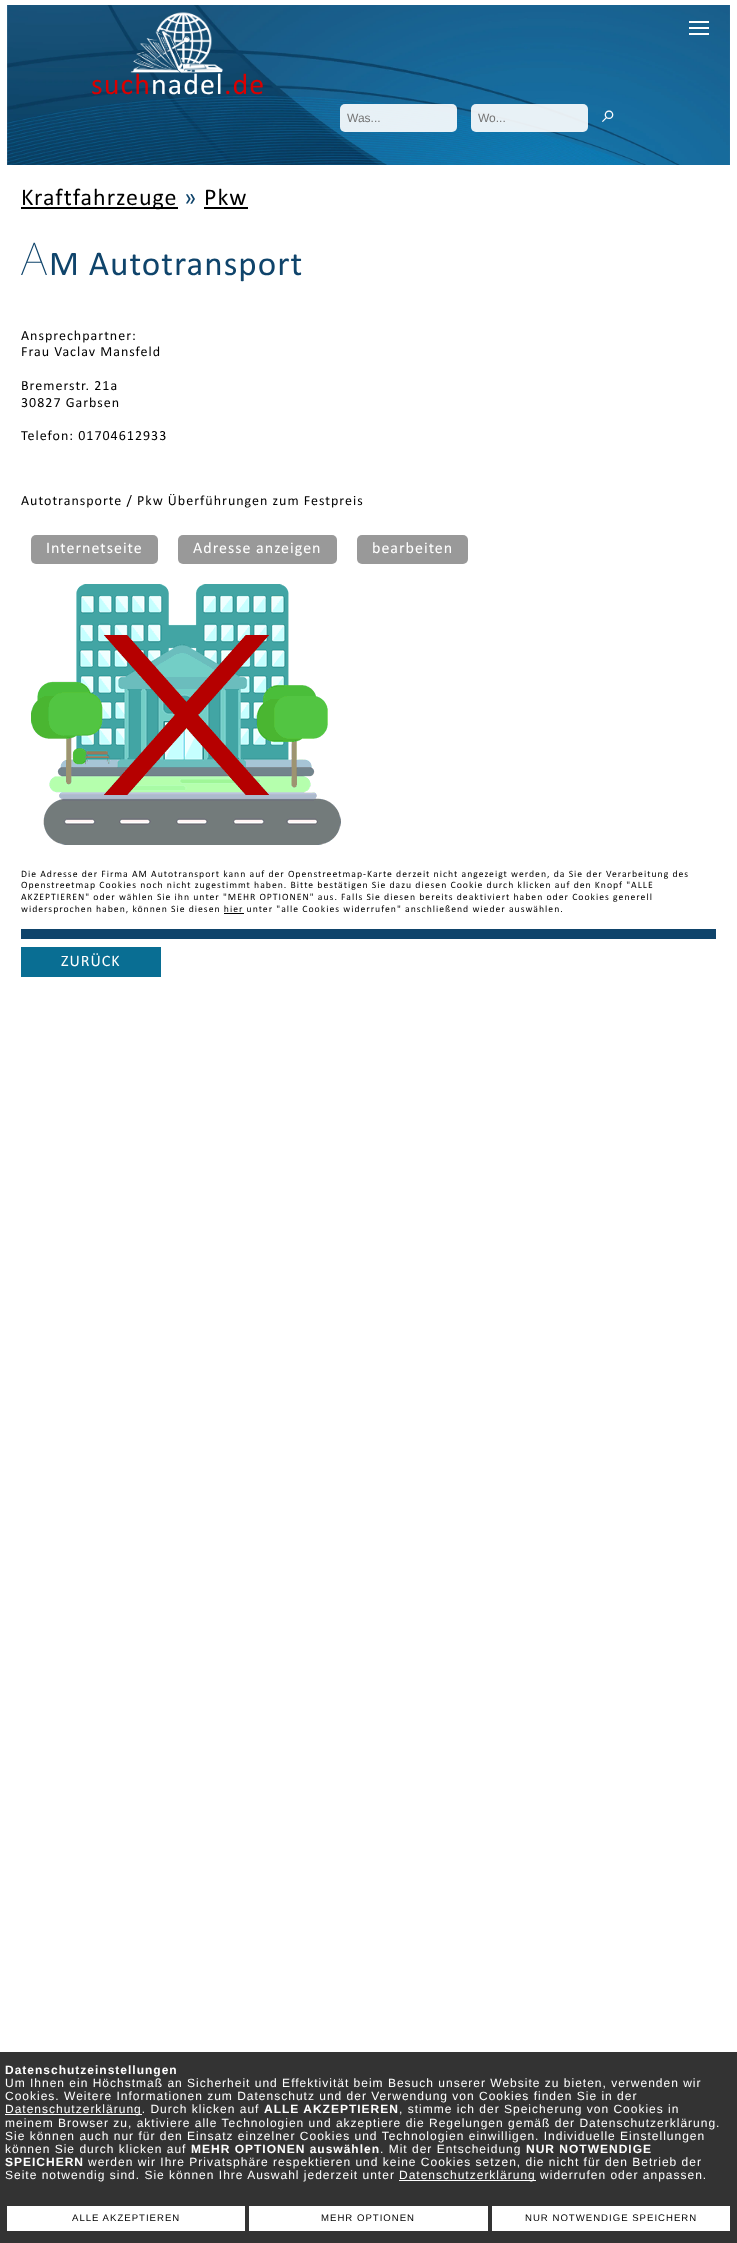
(async () => {
const canvas = document.querySelector("canvas")
canvas.width = 737
canvas.height = 2243
const c = canvas.getContext("2d")
c.miterLimit = 4
c.fontKerning = "normal"
function T(s,x,y){c.fillText(s,x,y)}
function R(x,y,w,h){c.fillRect(x,y,w,h)}
function Q(x,y,w,h,r){c.beginPath();c.roundRect(x,y,w,h,r);c.fill()}
async function I(src,x,y,w,h){const img=new Image();img.src=src;await img.decode();c.drawImage(img,x,y,w,h)}
c.fillStyle="#fff"
R(0,0,737,2243)
await I("1.png",7,5,723,160)
R(689,21,20,2)
R(689,27,20,2)
R(689,33,20,2)
await I("2.png",130,12,93,61)
c.letterSpacing="1px"
c.font="30px Calibri"
c.fillStyle="#d90000"
T("such",91,94)
c.fillStyle="#fff"
T("nadel",151,94)
c.fillStyle="#d90000"
T(".de",224,94)
c.fillStyle="#ffffffe6"
Q(340,104,117,28,5)
c.letterSpacing="0px"
c.font="12px Liberation Sans"
c.fillStyle="#757575"
T("Was...",347,122)
c.fillStyle="#ffffffe6"
Q(471,104,117,28,5)
c.fillStyle="#757575"
T("Wo...",478,122)
c.font="25px FreeSerif"
c.fillStyle="#fff"
T("⌕",602,122)
c.fillStyle="#000"
R(21,207,157,2)
c.letterSpacing="1px"
c.font="24px Calibri"
T("Kraftfahrzeuge",21,205)
c.fillStyle="#0f446b"
T("»",184,205)
c.fillStyle="#000"
T("Pkw",204,205)
R(204,207,44,2)
c.font="100 45px Noto Sans"
c.fillStyle="#0f446b"
T("A",21,275)
c.font="35px Calibri"
T("M Autotransport",49,275)
c.font="14px Calibri"
c.fillStyle="#000"
T("Ansprechpartner:",21,340)
T("Frau Vaclav Mansfeld",21,356)
T("Bremerstr. 21a",21,390)
T("30827 Garbsen",21,407)
T("Telefon: 01704612933",21,440)
T("Autotransporte / Pkw Überführungen zum Festpreis",21,505)
c.fillStyle="#999"
Q(31,535,127,29,5)
c.font="16px Calibri"
c.fillStyle="#fff"
T("Internetseite",46,553)
c.fillStyle="#999"
Q(178,535,159,29,5)
c.fillStyle="#fff"
T("Adresse anzeigen",193,553)
c.fillStyle="#999"
Q(357,535,111,29,5)
c.fillStyle="#fff"
T("bearbeiten",372,553)
await I("3.png",31,584,310,261)
c.font="9.72px Calibri"
c.fillStyle="#000"
T("Die Adresse der Firma AM Autotransport kann auf der Openstreetmap-Karte derzeit nicht angezeigt werden, da Sie der Verarbeitung des",21,877)
T("Openstreetmap Cookies noch nicht zugestimmt haben. Bitte bestätigen Sie dazu diesen Cookie durch klicken auf den Knopf \"ALLE",21,888)
T("AKZEPTIEREN\" oder wählen Sie ihn unter \"MEHR OPTIONEN\" aus. Falls Sie diesen bereits deaktiviert haben oder Cookies generell",21,900)
T("widersprochen haben, können Sie diesen hier unter \"alle Cookies widerrufen\" anschließend wieder auswählen.",21,912)
R(224,913,20,1)
c.fillStyle="#0f446b"
R(21,929,695,10)
c.fillStyle="#096e93"
R(21,947,140,30)
c.font="16px Calibri"
c.fillStyle="#fff"
T("ZURÜCK",61,966)
c.fillStyle="#333"
R(0,2052,737,191)
c.font="bold 12px Liberation Sans"
c.fillStyle="#fff"
T("Datenschutzeinstellungen",5,2074)
c.font="12px Liberation Sans"
T("Um Ihnen ein Höchstmaß an Sicherheit und Effektivität beim Besuch unserer Website zu bieten, verwenden wir",5,2087)
T("Cookies. Weitere Informationen zum Datenschutz und der Verwendung von Cookies finden Sie in der",5,2100)
R(5,2114,137,1)
T("Datenschutzerklärung. Durch klicken auf",5,2113)
c.font="bold 12px Liberation Sans"
T("ALLE AKZEPTIEREN",264,2113)
c.font="12px Liberation Sans"
T(", stimme ich der Speicherung von Cookies in",399,2113)
T("meinem Browser zu, aktiviere alle Technologien und akzeptiere die Regelungen gemäß der Datenschutzerklärung.",5,2127)
T("Sie können auch nur für den Einsatz einzelner Cookies und Technologien einwilligen. Individuelle Einstellungen",5,2140)
T("können Sie durch klicken auf",5,2153)
c.font="bold 12px Liberation Sans"
T("MEHR OPTIONEN auswählen",191,2153)
c.font="12px Liberation Sans"
T(". Mit der Entscheidung",380,2153)
c.font="bold 12px Liberation Sans"
T("NUR NOTWENDIGE",526,2153)
T("SPEICHERN",5,2166)
c.font="12px Liberation Sans"
T("werden wir Ihre Privatsphäre respektieren und keine Cookies setzen, die nicht für den Betrieb der",88,2166)
T("Seite notwendig sind. Sie können Ihre Auswahl jederzeit unter",5,2179)
R(399,2180,137,1)
T("Datenschutzerklärung widerrufen oder anpassen.",399,2179)
R(7,2206,238,25)
c.font="9.6px Liberation Sans"
c.fillStyle="#000"
T("ALLE AKZEPTIEREN",72,2221)
c.fillStyle="#fff"
R(249,2206,239,25)
c.fillStyle="#000"
T("MEHR OPTIONEN",321,2221)
c.fillStyle="#fff"
R(492,2206,238,25)
c.fillStyle="#000"
T("NUR NOTWENDIGE SPEICHERN",525,2221)
})()
